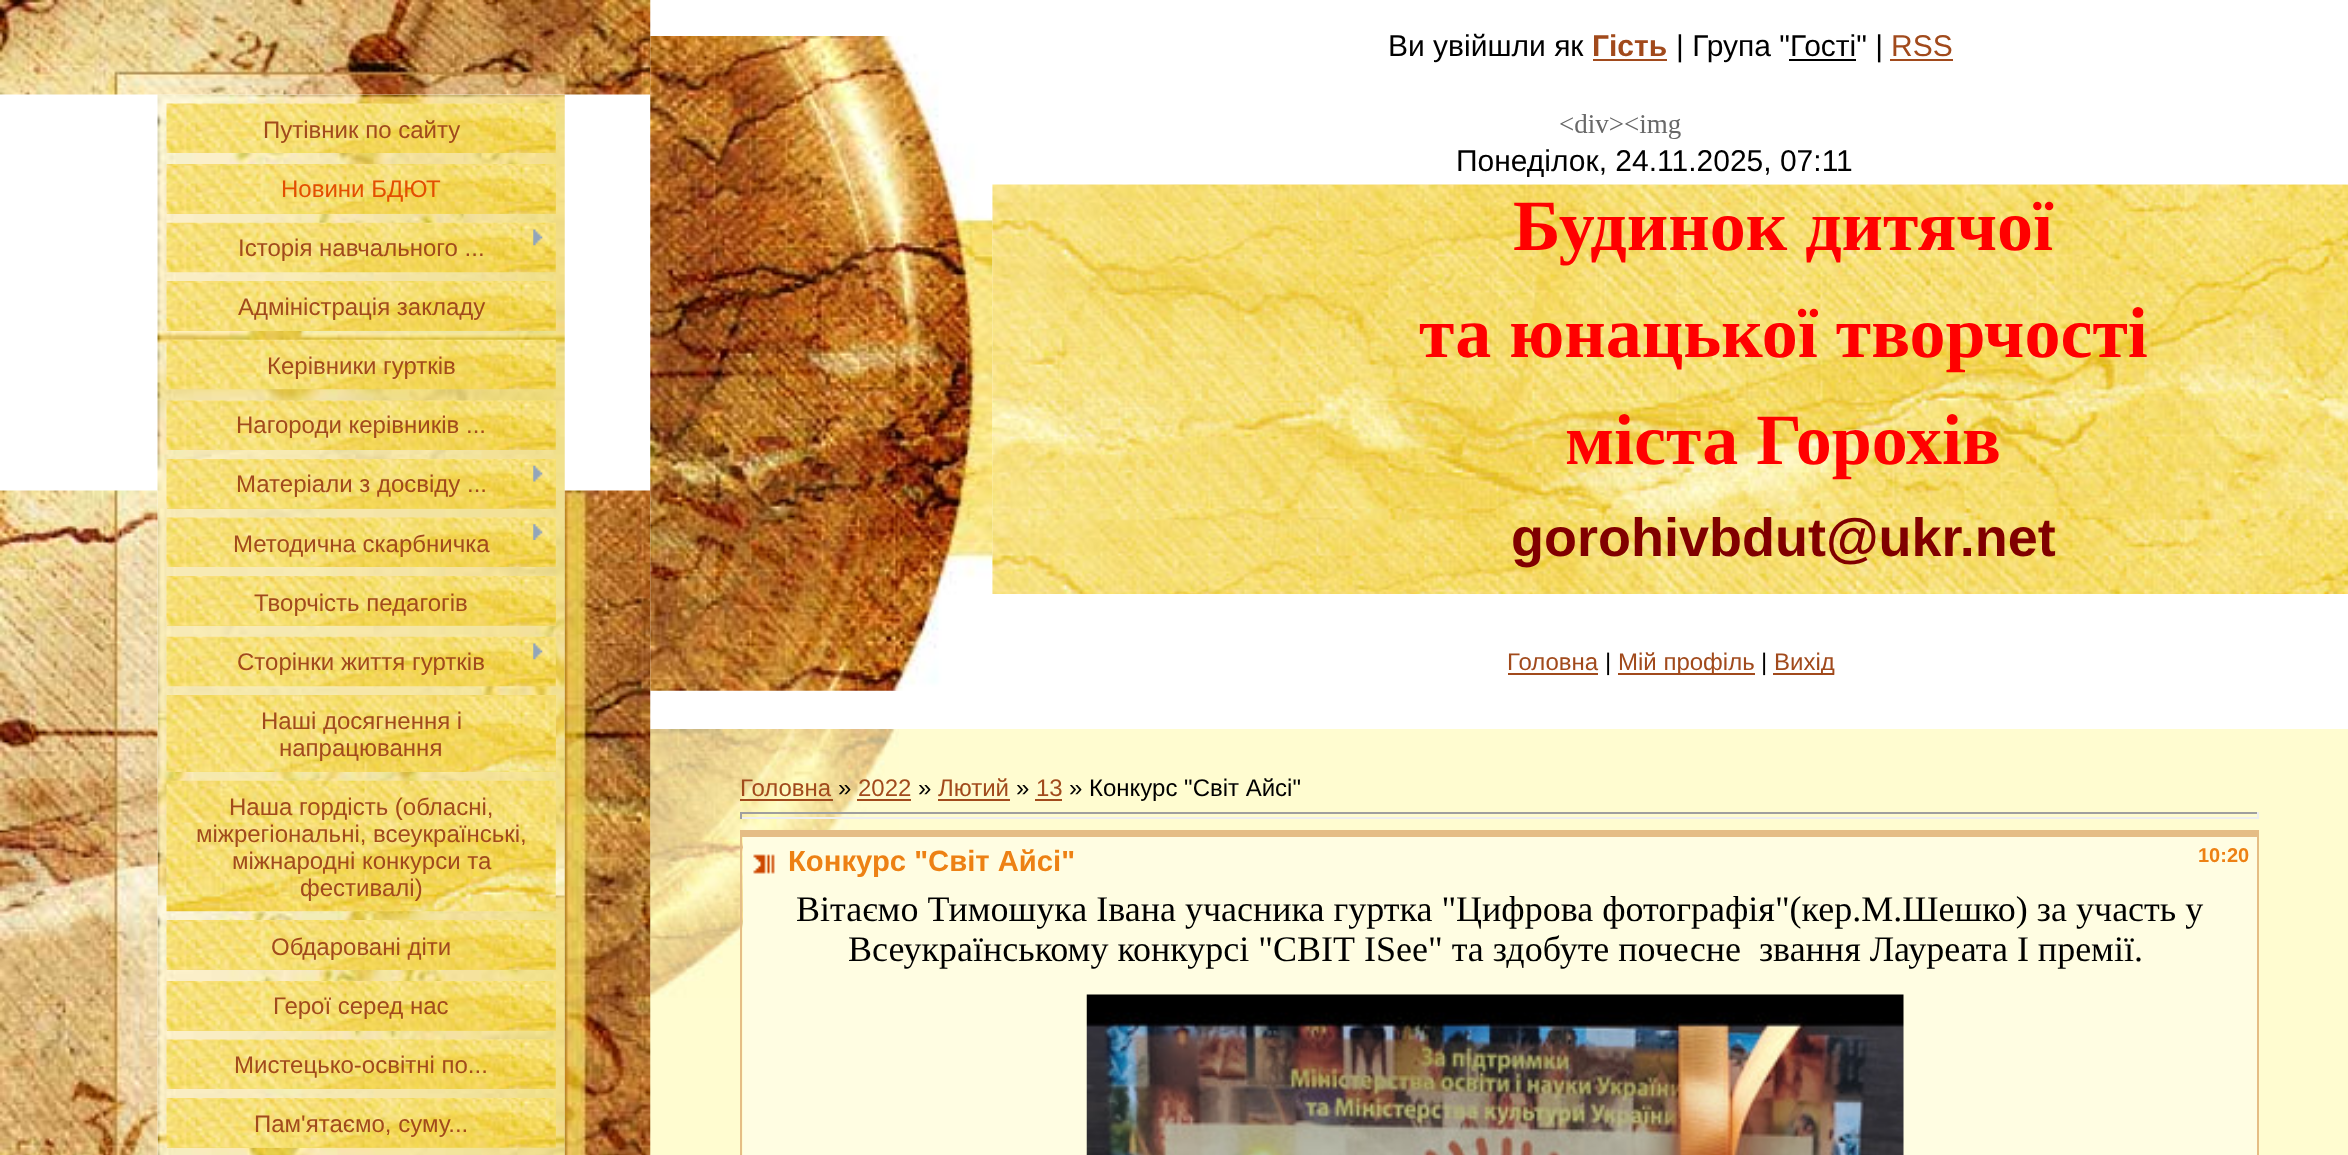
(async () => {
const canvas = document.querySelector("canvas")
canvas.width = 2348
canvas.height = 1155
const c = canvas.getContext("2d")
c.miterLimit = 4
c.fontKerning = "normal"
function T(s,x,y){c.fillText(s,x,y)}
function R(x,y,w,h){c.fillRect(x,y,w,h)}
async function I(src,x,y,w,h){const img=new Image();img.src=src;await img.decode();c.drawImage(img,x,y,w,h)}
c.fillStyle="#fff"
R(0,0,2348,1155)
await I("3.png",157,94,408,1061)
await I("1.png",0,0,651,95)
await I("2.png",0,490,158,665)
await I("4.png",166,103,390,50)
c.font="24px Liberation Sans"
c.fillStyle="#a14a1c"
T("Путівник по сайту",263,138)
c.fillStyle="#f2da6c"
R(167,164,389,50)
await I("5.png",166,164,390,50)
c.fillStyle="#e34e00"
T("Новини БДЮТ",281,197)
await I("6.png",166,222,390,51)
c.fillStyle="#a14a1c"
T("Історія навчального ...",238,256)
await I("7.png",533,229,10,17)
c.fillStyle="#f2da6c"
R(167,281,389,50)
await I("8.png",166,281,390,50)
c.fillStyle="#a14a1c"
T("Адміністрація закладу",238,315)
await I("9.png",166,339,390,51)
T("Керівники гуртків",267,374)
await I("10.png",166,400,390,50)
T("Нагороди керівників ...",236,433)
c.fillStyle="#f2da6c"
R(167,459,389,50)
await I("11.png",166,459,390,50)
c.fillStyle="#a14a1c"
T("Матеріали з досвіду ...",236,492)
await I("12.png",533,465,10,17)
await I("13.png",166,517,390,50)
await I("14.png",533,524,10,16)
T("Методична скарбничка",233,552)
c.fillStyle="#f2da6c"
R(167,576,389,50)
await I("15.png",166,576,390,50)
c.fillStyle="#a14a1c"
T("Творчість педагогів",254,611)
await I("16.png",166,636,390,51)
T("Сторінки життя гуртків",237,670)
await I("7.png",533,643,10,17)
c.fillStyle="#f2da6c"
R(167,695,389,77)
await I("17.png",166,695,390,77)
c.fillStyle="#a14a1c"
T("Наші досягнення і",261,729)
T("напрацювання",279,756)
await I("18.png",166,780,390,132)
T("Наша гордість (обласні,",229,815)
T("міжрегіональні, всеукраїнські,",196,842)
T("міжнародні конкурси та",232,869)
T("фестивалі)",300,896)
c.fillStyle="#f2da6c"
R(167,920,389,50)
await I("19.png",166,920,390,50)
c.fillStyle="#a14a1c"
T("Обдаровані діти",271,955)
c.fillStyle="#f2da6c"
R(167,981,389,50)
await I("20.png",166,981,390,50)
c.fillStyle="#a14a1c"
T("Герої серед нас",273,1014)
await I("21.png",166,1039,390,50)
T("Мистецько-освітні по...",234,1073)
c.fillStyle="#f2da6c"
R(167,1098,389,50)
await I("22.png",166,1098,390,50)
c.fillStyle="#a14a1c"
T("Пам'ятаємо, суму...",254,1132)
c.fillStyle="#fffcd0"
R(650,729,1698,426)
await I("27.png",650,729,249,269)
await I("23.png",564,490,87,665)
await I("26.png",992,184,1356,410)
await I("24.png",650,36,343,655)
c.font="30px Liberation Sans"
c.fillStyle="#000"
T("Ви увійшли як",1388,56)
c.font="bold 30px Liberation Sans"
c.fillStyle="#a14a1c"
T("Гість",1592,56)
R(1593,59,74,2)
c.font="30px Liberation Sans"
c.fillStyle="#000"
T("| Група \"Гості\" |",1676,56)
c.fillStyle="#a14a1c"
T("RSS",1891,56)
R(1890,59,63,2)
c.fillStyle="#000"
R(1789,59,67,2)
await I("25.png",1560,114,121,25)
T("Понеділок, 24.11.2025, 07:11",1456,171)
c.font="bold 72px Liberation Serif"
c.fillStyle="#f00"
T("Будинок дитячої",1513,250)
T("та юнацької творчості",1419,357)
T("міста Горохів",1565,464)
c.font="bold 54px Liberation Sans"
c.fillStyle="#800000"
T("gorohivbdut@ukr.net",1511,556)
c.font="24px Liberation Sans"
c.fillStyle="#a14a1c"
T("Головна",1507,670)
R(1508,673,90,2)
c.fillStyle="#000"
T("|",1605,670)
c.fillStyle="#a14a1c"
R(1618,673,137,2)
T("Мій профіль",1618,670)
c.fillStyle="#000"
T("|",1761,670)
c.fillStyle="#a14a1c"
R(1773,673,61,2)
T("Вихід",1774,670)
T("Головна",740,796)
R(740,799,93,2)
c.fillStyle="#000"
T("»",838,796)
c.fillStyle="#a14a1c"
T("2022",858,796)
R(857,799,54,2)
c.fillStyle="#000"
T("»",918,796)
c.fillStyle="#a14a1c"
T("Лютий",938,796)
R(938,799,72,2)
c.fillStyle="#000"
T("»",1016,796)
c.fillStyle="#a14a1c"
T("13",1036,796)
R(1035,799,27,2)
c.fillStyle="#000"
T("» Конкурс \"Світ Айсі\"",1069,796)
c.fillStyle="#9f9f9f"
R(740,812,1519,2)
c.fillStyle="#eee"
R(2257,812,2,7)
R(740,817,1519,2)
c.fillStyle="#9f9f9f"
R(740,812,2,7)
c.fillStyle="#fffde2"
R(743,837,1514,318)
c.fillStyle="#e5bd85"
R(740,830,1519,7)
R(2257,830,2,325)
R(740,830,2,325)
await I("28.png",753,854,22,20)
c.font="bold 29.25px Liberation Sans"
c.fillStyle="#ed8114"
T("Конкурс \"Світ Айсі\"",788,871)
c.font="bold 20px Liberation Sans"
T("10:20",2198,862)
c.font="36px Liberation Serif"
c.fillStyle="#000"
T("Вітаємо Тимошука Івана учасника гуртка \"Цифрова фотографія\"(кер.М.Шешко) за участь у",796,921)
T("Всеукраїнському конкурсі \"СВІТ ISee\" та здобуте почесне  звання Лауреата І премії.",848,961)
await I("29.png",1086,994,818,161)
})()
